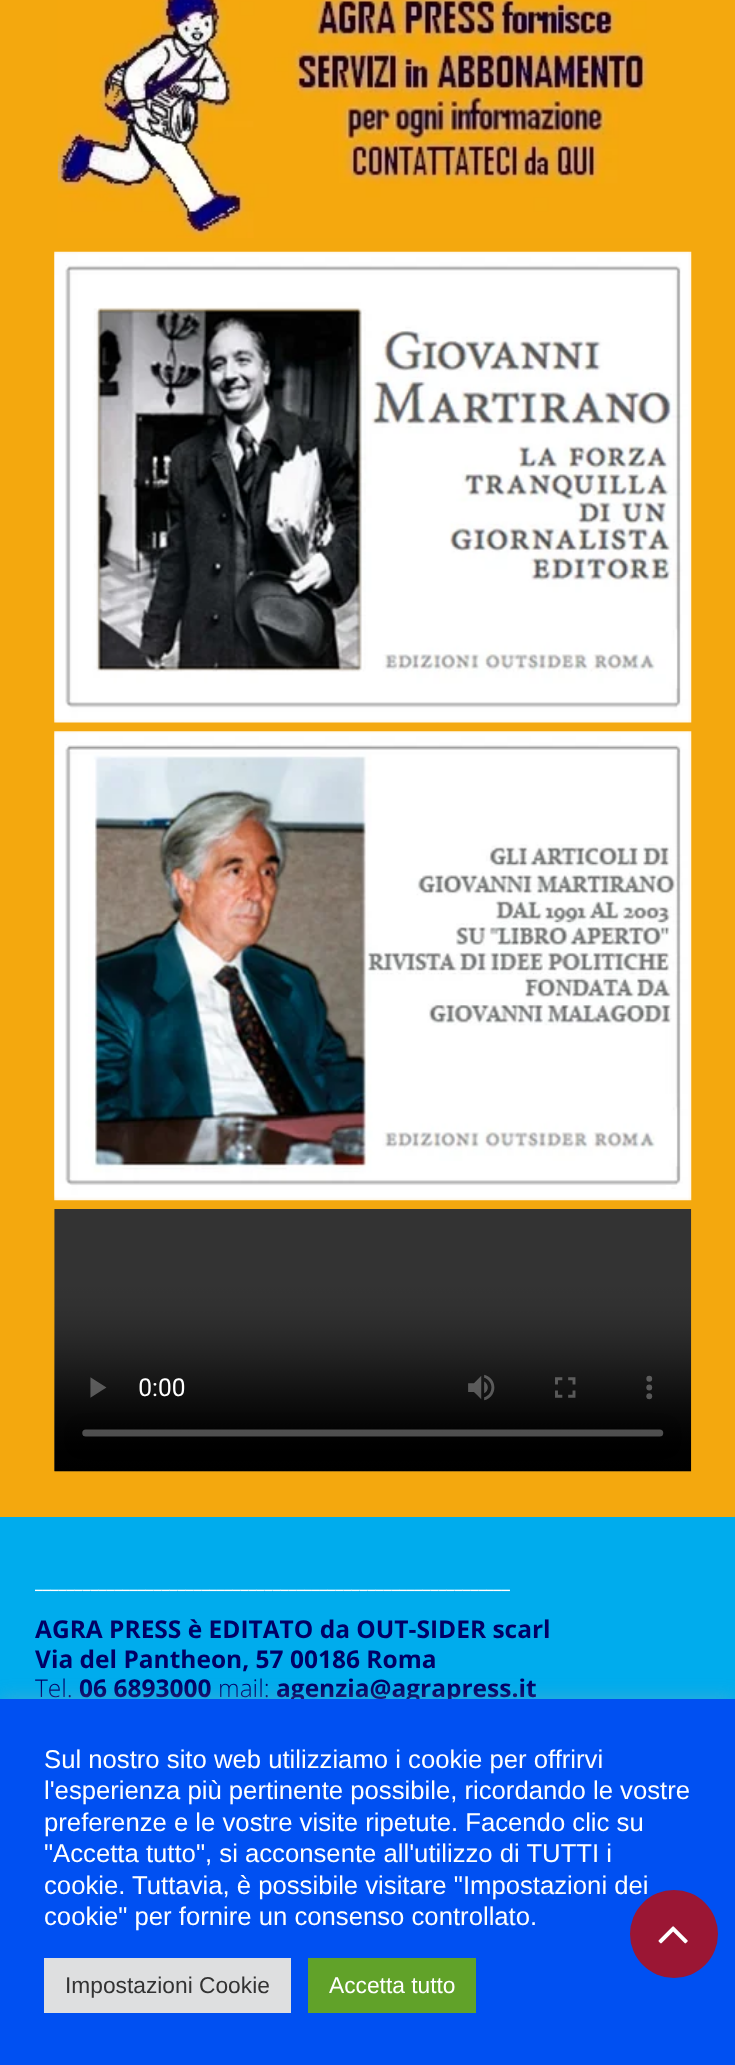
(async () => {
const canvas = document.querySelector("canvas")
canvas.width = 735
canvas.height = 2065
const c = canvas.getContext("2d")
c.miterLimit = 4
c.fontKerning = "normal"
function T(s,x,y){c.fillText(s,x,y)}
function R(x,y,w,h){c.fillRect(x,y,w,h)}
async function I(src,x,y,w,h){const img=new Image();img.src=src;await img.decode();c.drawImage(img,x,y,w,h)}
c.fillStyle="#f4a80e"
R(0,0,735,2065)
await I("1.png",57,0,593,238)
await I("2.png",54,251,638,472)
await I("3.png",54,731,638,470)
await I("4.png",54,1209,638,263)
c.fillStyle="#00aced"
R(0,1517,735,182)
c.font="bold 19.25px Open Sans"
c.fillStyle="#fff"
T("____________________________________________________________",35,1588)
c.font="bold 24.5px Open Sans"
c.fillStyle="#006"
T("AGRA PRESS è EDITATO da OUT-SIDER scarl",35,1638)
T("Via del Pantheon, 57 00186 Roma",35,1668)
c.font="300 24.5px Open Sans"
T("Tel.",35,1697)
c.font="bold 24.5px Open Sans"
T("06 6893000",79,1697)
c.font="300 24.5px Open Sans"
T("mail:",218,1697)
c.font="bold 24.5px Open Sans"
T("agenzia@agrapress.it",276,1697)
c.fillStyle="#acabab4d"
c.filter="blur(9px)"
c.beginPath()
c.rect(0,1698,735,365)
c.fill()
c.filter="none"
c.fillStyle="#0050f2"
R(0,1699,735,366)
c.font="25.7px Liberation Sans"
c.fillStyle="#fff"
T("Sul nostro sito web utilizziamo i cookie per offrirvi",44,1768)
T("l'esperienza più pertinente possibile, ricordando le vostre",44,1799)
T("preferenze e le vostre visite ripetute. Facendo clic su",44,1831)
T("\"Accetta tutto\", si acconsente all'utilizzo di TUTTI i",44,1862)
T("cookie. Tuttavia, è possibile visitare \"Impostazioni dei",44,1894)
T("cookie\" per fornire un consenso controllato.",44,1925)
c.fillStyle="#dedfe0"
R(44,1958,247,55)
c.font="22.75px Liberation Sans"
c.fillStyle="#333"
T("Impostazioni Cookie",65,1993)
c.fillStyle="#61a229"
R(308,1958,168,55)
c.fillStyle="#fff"
T("Accetta tutto",329,1993)
c.fillStyle="#9b1634"
c.beginPath()
c.arc(674,1934,44,0,7)
c.fill()
await I("5.png",658,1926,30,18)
})()
